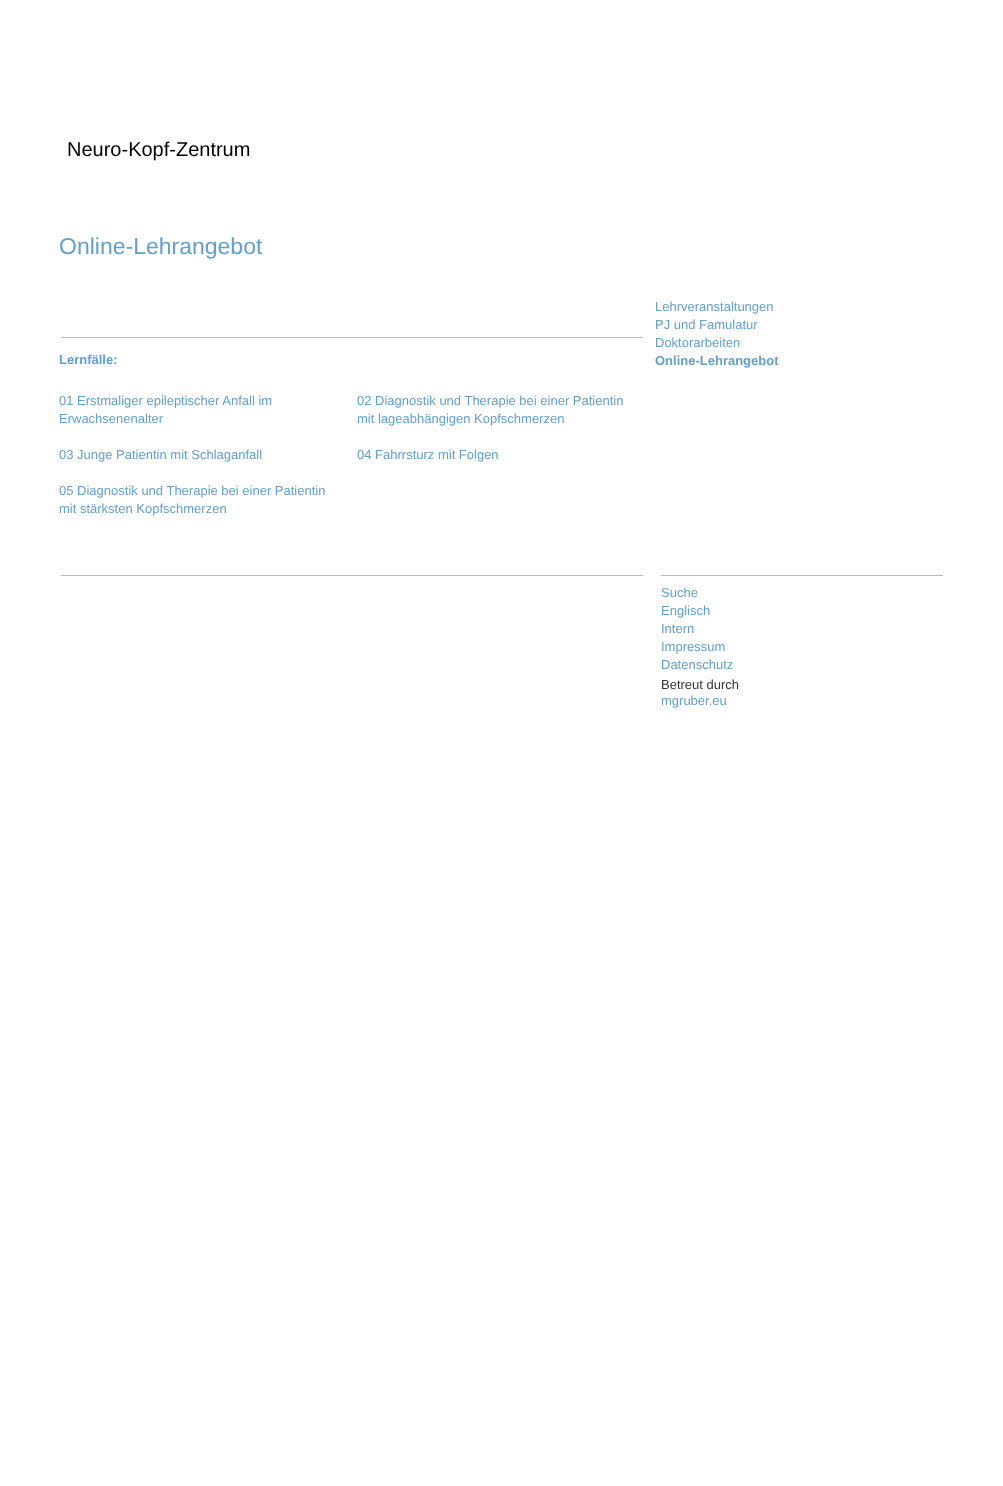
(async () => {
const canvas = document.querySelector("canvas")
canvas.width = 1003
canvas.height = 1486
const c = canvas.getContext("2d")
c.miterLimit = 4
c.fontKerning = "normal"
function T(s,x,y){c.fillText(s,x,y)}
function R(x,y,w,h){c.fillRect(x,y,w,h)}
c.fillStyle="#fff"
R(0,0,1003,1486)
c.font="20px Liberation Sans"
c.fillStyle="#000"
T("Neuro-Kopf-Zentrum",67,156)
c.font="23px Liberation Sans"
c.fillStyle="#64a0c8"
T("Online-Lehrangebot",59,254)
c.font="13px Liberation Sans"
T("Lehrveranstaltungen",655,311)
T("PJ und Famulatur",655,329)
T("Doktorarbeiten",655,347)
c.font="bold 13px Liberation Sans"
T("Online-Lehrangebot",655,365)
c.fillStyle="#bbb"
R(61,337,582,1)
c.fillStyle="#64a0c8"
T("Lernfälle:",59,364)
c.font="13px Liberation Sans"
T("01 Erstmaliger epileptischer Anfall im",59,405)
T("Erwachsenenalter",59,423)
T("03 Junge Patientin mit Schlaganfall",59,459)
T("05 Diagnostik und Therapie bei einer Patientin",59,495)
T("mit stärksten Kopfschmerzen",59,513)
T("02 Diagnostik und Therapie bei einer Patientin",357,405)
T("mit lageabhängigen Kopfschmerzen",357,423)
T("04 Fahrrsturz mit Folgen",357,459)
c.fillStyle="#bbb"
R(61,575,582,1)
R(661,575,282,1)
c.fillStyle="#64a0c8"
T("Suche",661,597)
T("Englisch",661,615)
T("Intern",661,633)
T("Impressum",661,651)
T("Datenschutz",661,669)
c.fillStyle="#333"
T("Betreut durch",661,689)
c.fillStyle="#64a0c8"
T("mgruber.eu",661,705)
})()
